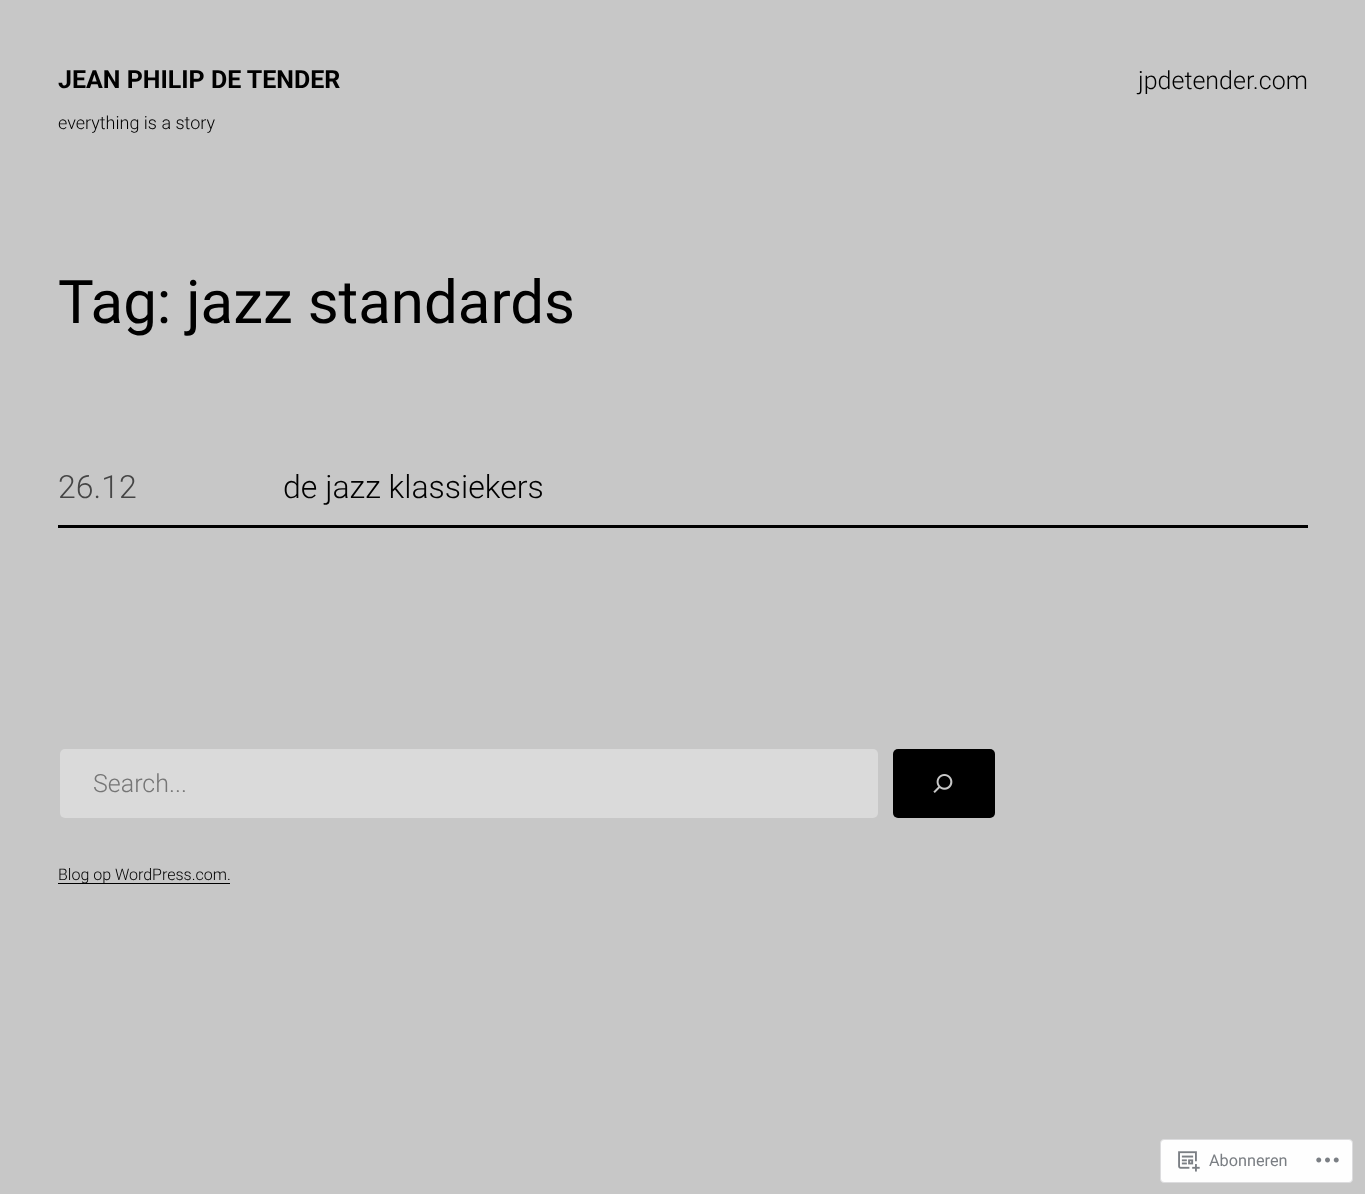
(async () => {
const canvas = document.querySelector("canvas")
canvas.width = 1365
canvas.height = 1194
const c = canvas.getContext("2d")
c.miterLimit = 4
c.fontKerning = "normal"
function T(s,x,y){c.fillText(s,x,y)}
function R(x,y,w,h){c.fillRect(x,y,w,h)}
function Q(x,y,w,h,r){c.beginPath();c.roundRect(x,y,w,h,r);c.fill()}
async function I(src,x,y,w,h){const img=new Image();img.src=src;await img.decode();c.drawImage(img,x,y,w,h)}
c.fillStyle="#c7c7c7"
R(0,0,1365,1194)
c.font="bold 25px Roboto"
c.fillStyle="#000"
T("JEAN PHILIP DE TENDER",58,88)
c.font="300 25px Roboto"
T("jpdetender.com",1138,89)
c.font="300 18px Roboto"
T("everything is a story",58,129)
c.font="60px Roboto"
T("Tag: jazz standards",58,323)
R(58,525,1250,3)
c.font="300 32px Roboto"
c.fillStyle="#454545"
T("26.12",58,498)
c.fillStyle="#000"
T("de jazz klassiekers",283,498)
c.fillStyle="#dadada"
Q(60,749,818,69,5)
c.font="300 25px Roboto"
c.fillStyle="#757575"
T("Search...",93,792)
c.fillStyle="#000"
Q(893,749,102,69,5)
await I("1.png",933,774,20,19)
R(58,883,172,1)
c.font="300 16px Roboto"
T("Blog op WordPress.com.",58,880)
c.fillStyle="#fefefe"
c.beginPath()
c.roundRect(1160.5,1139.5,192,43,3.5)
c.fill()
c.strokeStyle="#dcdcde"
c.stroke()
await I("2.png",1178,1151,22,21)
c.font="16.25px Roboto"
c.fillStyle="#7a7e83"
T("Abonneren",1209,1166)
await I("3.png",1316,1157,23,6)
})()
